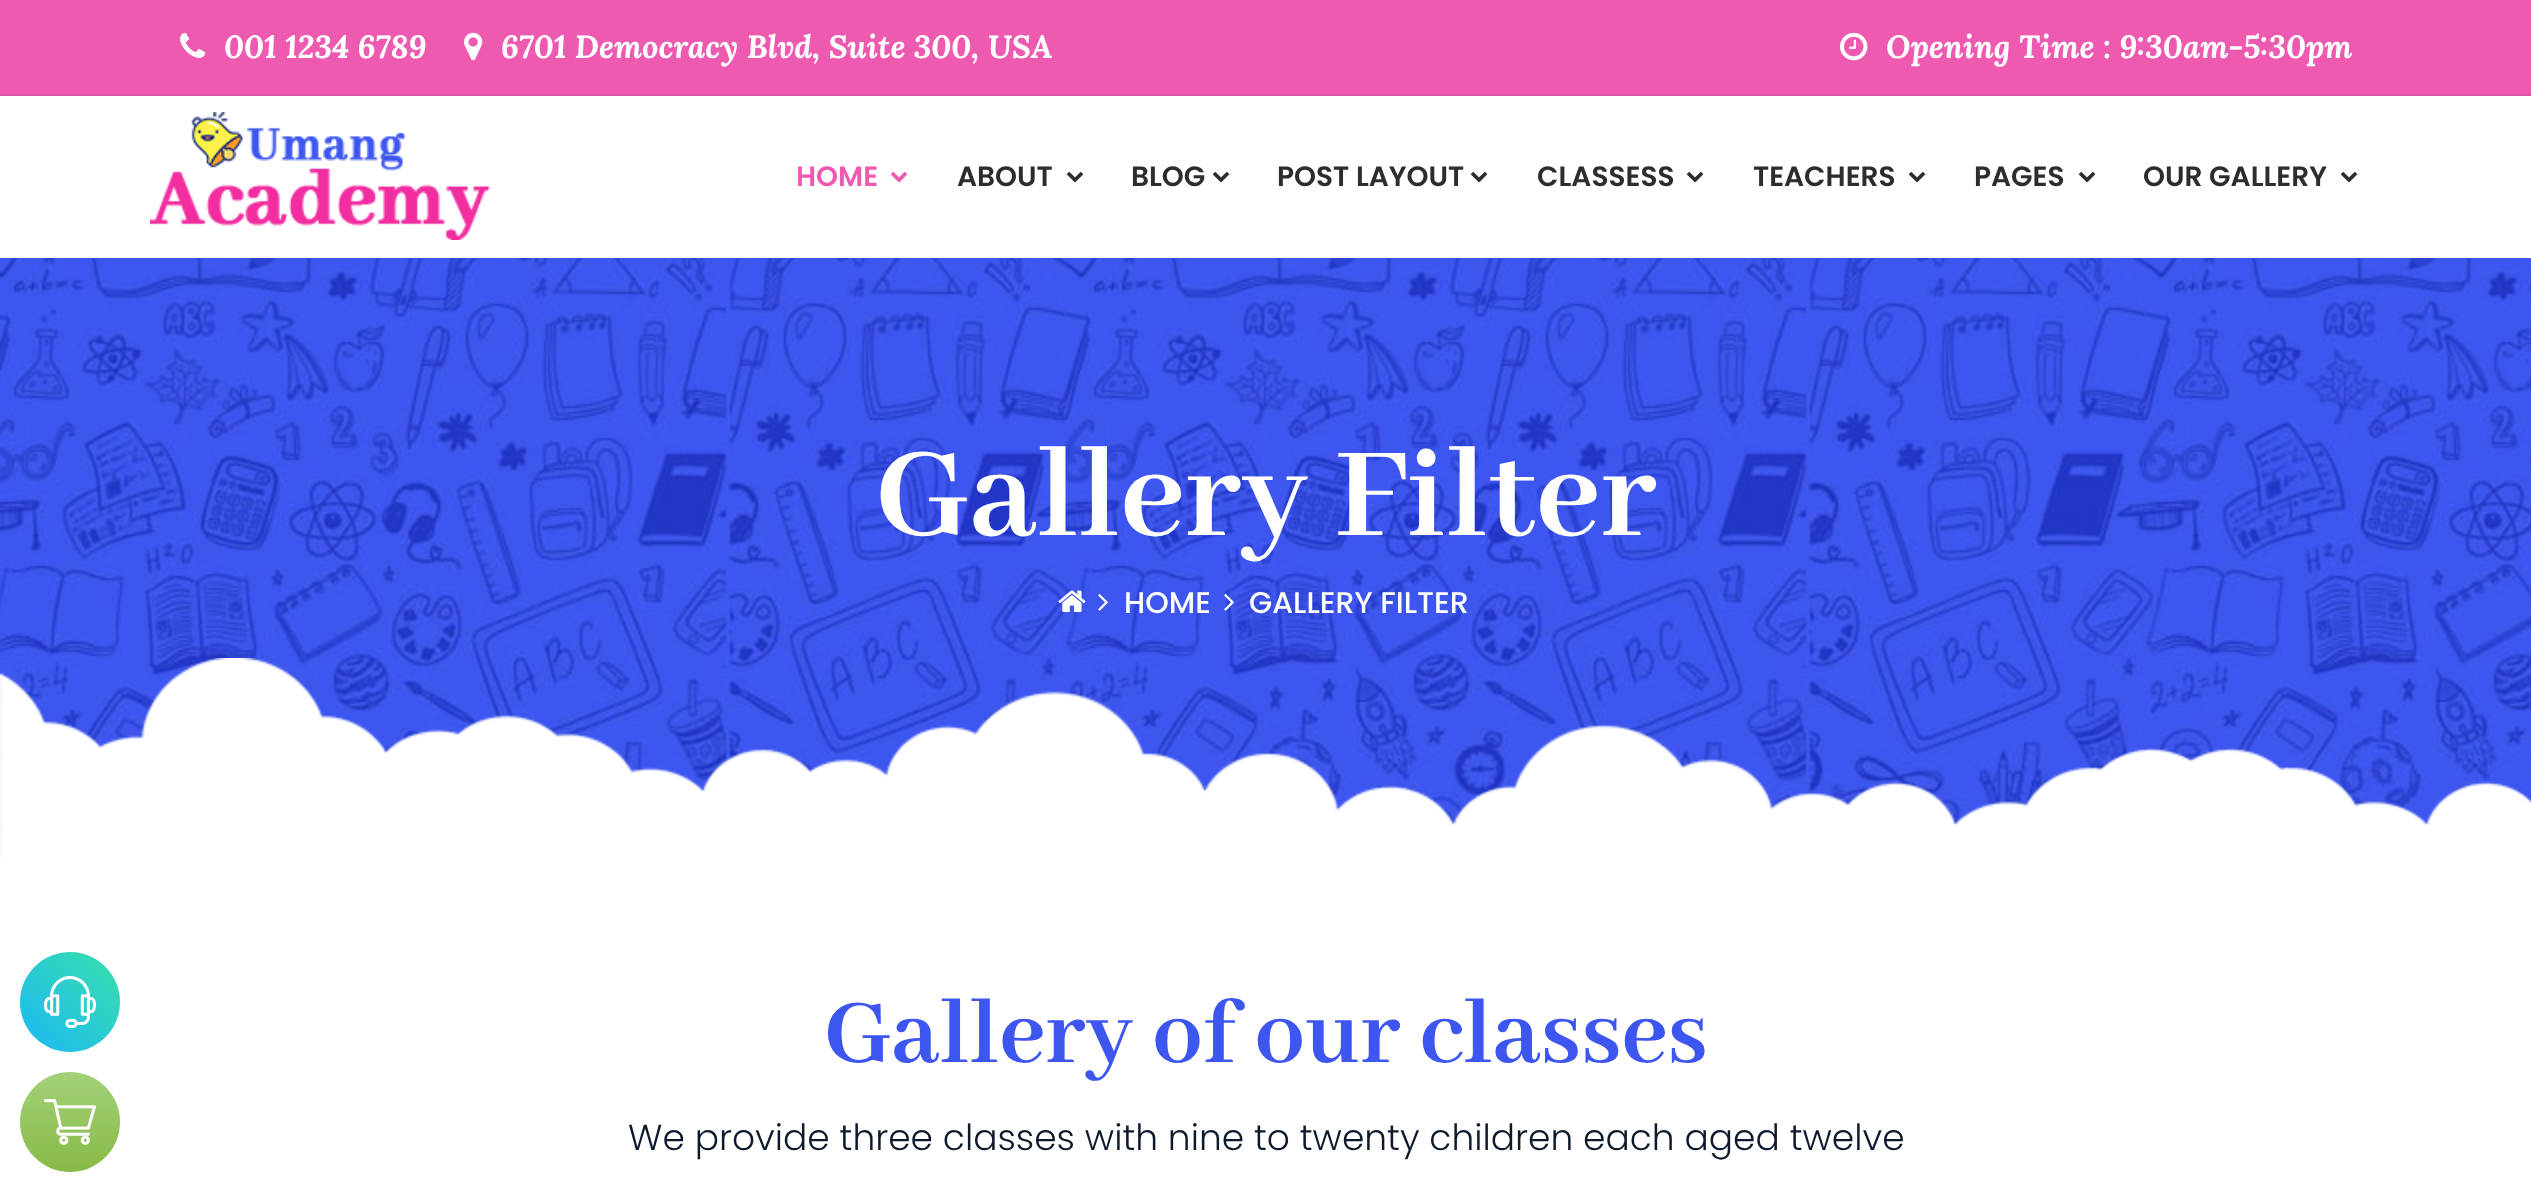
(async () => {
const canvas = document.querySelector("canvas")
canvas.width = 2531
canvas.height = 1192
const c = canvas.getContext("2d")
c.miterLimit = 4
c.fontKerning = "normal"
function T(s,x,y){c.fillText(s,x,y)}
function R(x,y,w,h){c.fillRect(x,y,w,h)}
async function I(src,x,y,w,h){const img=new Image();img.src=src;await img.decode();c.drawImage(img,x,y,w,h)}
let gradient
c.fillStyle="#fff"
R(0,0,2531,1192)
gradient = c.createLinearGradient(20,1052,120,952)
gradient.addColorStop(.08,"#1ebbf0")
gradient.addColorStop(1,"#39dfaa")
c.fillStyle = gradient
c.beginPath()
c.arc(70,1002,50,0,7)
c.fill()
await I("1.png",44,976,52,52)
c.fillStyle="#ed5ab0"
R(0,0,2531,94)
c.fillStyle="#da53a2"
R(0,94,2531,2)
await I("2.png",180,32,26,26)
c.font="italic bold 32px Lora"
c.fillStyle="#fff"
T("001 1234 6789",224,58)
await I("3.png",464,32,19,29)
T("6701 Democracy Blvd, Suite 300, USA",501,58)
await I("4.png",1840,32,28,29)
T("Opening Time : 9:30am-5:30pm",1886,58)
await I("5.png",150,112,340,128)
c.font="600 28px Poppins"
c.fillStyle="#ed5ab0"
T("HOME",796,186)
await I("6.png",891,172,16,11)
c.fillStyle="#2b2d2e"
T("ABOUT",957,186)
await I("7.png",1066,172,18,11)
T("BLOG",1131,186)
await I("7.png",1212,172,18,11)
T("POST LAYOUT",1277,186)
await I("7.png",1470,172,18,11)
T("CLASSESS",1537,186)
await I("7.png",1686,172,18,11)
T("TEACHERS",1753,186)
await I("7.png",1908,172,18,11)
T("PAGES",1974,186)
await I("7.png",2078,172,18,11)
T("OUR GALLERY",2143,186)
await I("7.png",2340,172,18,11)
await I("8.png",0,258,2531,600)
c.font="bold 140px Abhaya Libre"
c.fillStyle="#fff"
T("Gallery Filter",875,535)
await I("9.png",1058,590,28,22)
await I("10.png",1098,594,10,17)
c.font="500 30px Poppins"
T("HOME",1124,613)
await I("11.png",1224,594,10,17)
T("GALLERY FILTER",1249,613)
await I("12.png",0,658,2531,200)
await I("13.png",0,658,2531,200)
c.font="bold 100px Abhaya Libre"
c.fillStyle="#3d56f0"
T("Gallery of our classes",824,1062)
c.font="300 36px Poppins"
c.fillStyle="#0f192d"
T("We provide three classes with nine to twenty children each aged twelve",628,1150)
gradient = c.createLinearGradient(70,1072,70,1172)
gradient.addColorStop(0,"#a3d179")
gradient.addColorStop(1,"#88ba46")
c.fillStyle = gradient
c.beginPath()
c.arc(70,1122,50,0,7)
c.fill()
await I("14.png",44,1099,52,46)
})()
